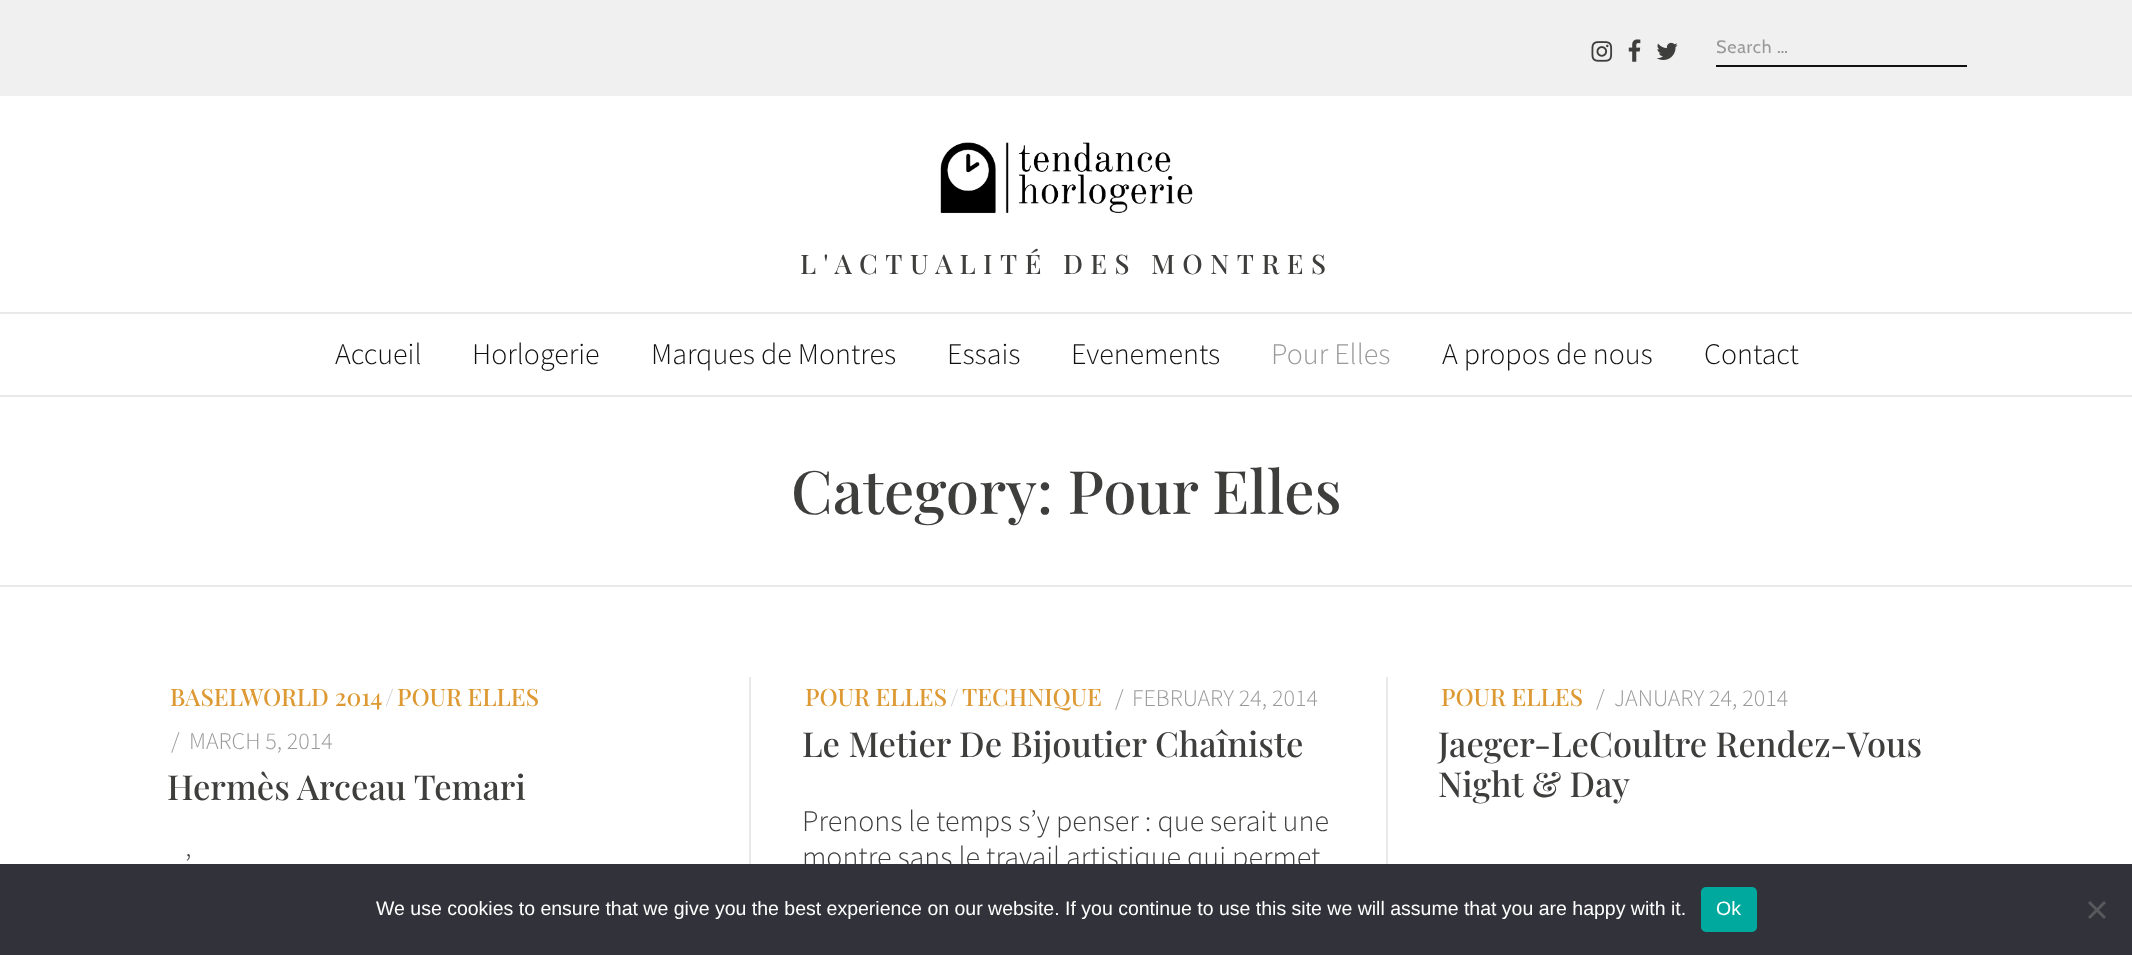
(async () => {
const canvas = document.querySelector("canvas")
canvas.width = 2132
canvas.height = 955
const c = canvas.getContext("2d")
c.miterLimit = 4
c.fontKerning = "normal"
function T(s,x,y){c.fillText(s,x,y)}
function R(x,y,w,h){c.fillRect(x,y,w,h)}
function Q(x,y,w,h,r){c.beginPath();c.roundRect(x,y,w,h,r);c.fill()}
async function I(src,x,y,w,h){const img=new Image();img.src=src;await img.decode();c.drawImage(img,x,y,w,h)}
let path
c.fillStyle="#fff"
R(0,0,2132,955)
c.fillStyle="#f0f0f0"
R(0,0,2132,96)
await I("1.png",1591,41,22,21)
await I("2.png",1628,39,13,23)
await I("3.png",1656,42,22,18)
c.fillStyle="#111"
R(1716,65,251,2)
c.letterSpacing="0.75px"
c.font="18px Cabin"
c.fillStyle="#999"
T("Search …",1716,53)
await I("4.png",940,142,253,72)
c.letterSpacing="7.5px"
c.font="500 27px Playfair Display"
c.fillStyle="#3e3f3d"
T("L'ACTUALITÉ DES MONTRES",800,274)
c.fillStyle="#e9e9e9"
R(0,312,2132,2)
R(0,395,2132,2)
c.letterSpacing="0px"
c.font="300 30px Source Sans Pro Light"
c.fillStyle="#111"
T("Accueil",335,364)
T("Horlogerie",472,364)
T("Marques de Montres",651,364)
T("Essais",947,364)
T("Evenements",1071,364)
c.fillStyle="#999"
T("Pour Elles",1271,364)
c.fillStyle="#111"
T("A propos de nous",1442,364)
T("Contact",1704,364)
c.fillStyle="#e9e9e9"
R(0,585,2132,2)
c.font="500 60px Playfair Display"
c.fillStyle="#3e3f3d"
T("Category: Pour Elles",791,514)
c.font="500 24px Playfair Display"
c.fillStyle="#d93"
T("BASELWORLD 2014",170,706)
c.fillStyle="#ccc"
T("/",385,706)
c.fillStyle="#d93"
T("POUR ELLES",397,706)
c.font="300 24px Source Sans Pro Light"
c.fillStyle="#999"
T("/",171,749)
T("MARCH 5, 2014",189,749)
c.font="500 34.5px Playfair Display"
c.fillStyle="#3e3f3d"
T("Hermès Arceau Temari",167,800)
c.font="300 30px Source Sans Pro Light"
T("’",185,875)
c.fillStyle="#e9e9e9"
R(749,677,2,187)
R(1386,677,2,187)
c.font="500 24px Playfair Display"
c.fillStyle="#d93"
T("POUR ELLES",805,706)
c.fillStyle="#ccc"
T("/",950,706)
c.fillStyle="#d93"
T("TECHNIQUE",962,706)
c.font="300 24px Source Sans Pro Light"
c.fillStyle="#999"
T("/",1115,706)
T("FEBRUARY 24, 2014",1132,706)
c.font="500 34.5px Playfair Display"
c.fillStyle="#3e3f3d"
T("Le Metier De Bijoutier Chaîniste",802,757)
c.font="300 30px Source Sans Pro Light"
T("Prenons le temps s’y penser : que serait une",802,831)
T("montre sans le travail artistique qui permet",802,867)
c.font="500 24px Playfair Display"
c.fillStyle="#d93"
T("POUR ELLES",1441,706)
c.font="300 24px Source Sans Pro Light"
c.fillStyle="#999"
T("/",1596,706)
T("JANUARY 24, 2014",1614,706)
c.font="500 34.5px Playfair Display"
c.fillStyle="#3e3f3d"
T("Jaeger-LeCoultre Rendez-Vous",1438,757)
T("Night & Day",1438,797)
c.fillStyle="#32323a"
R(0,864,2132,91)
c.font="19.5px Liberation Sans"
c.fillStyle="#fff"
T("We use cookies to ensure that we give you the best experience on our website. If you continue to use this site we will assume that you are happy with it.",376,915)
c.fillStyle="#00a99d"
Q(1701,887,56,45,5)
c.fillStyle="#fff"
T("Ok",1716,915)
c.fillStyle="#59595d"
path = new Path2D("M2104 901l2 2l-16 16l-2-2z")
c.fill(path)
path = new Path2D("M2088 903l2-2l16 16l-2 2z")
c.fill(path)
})()
